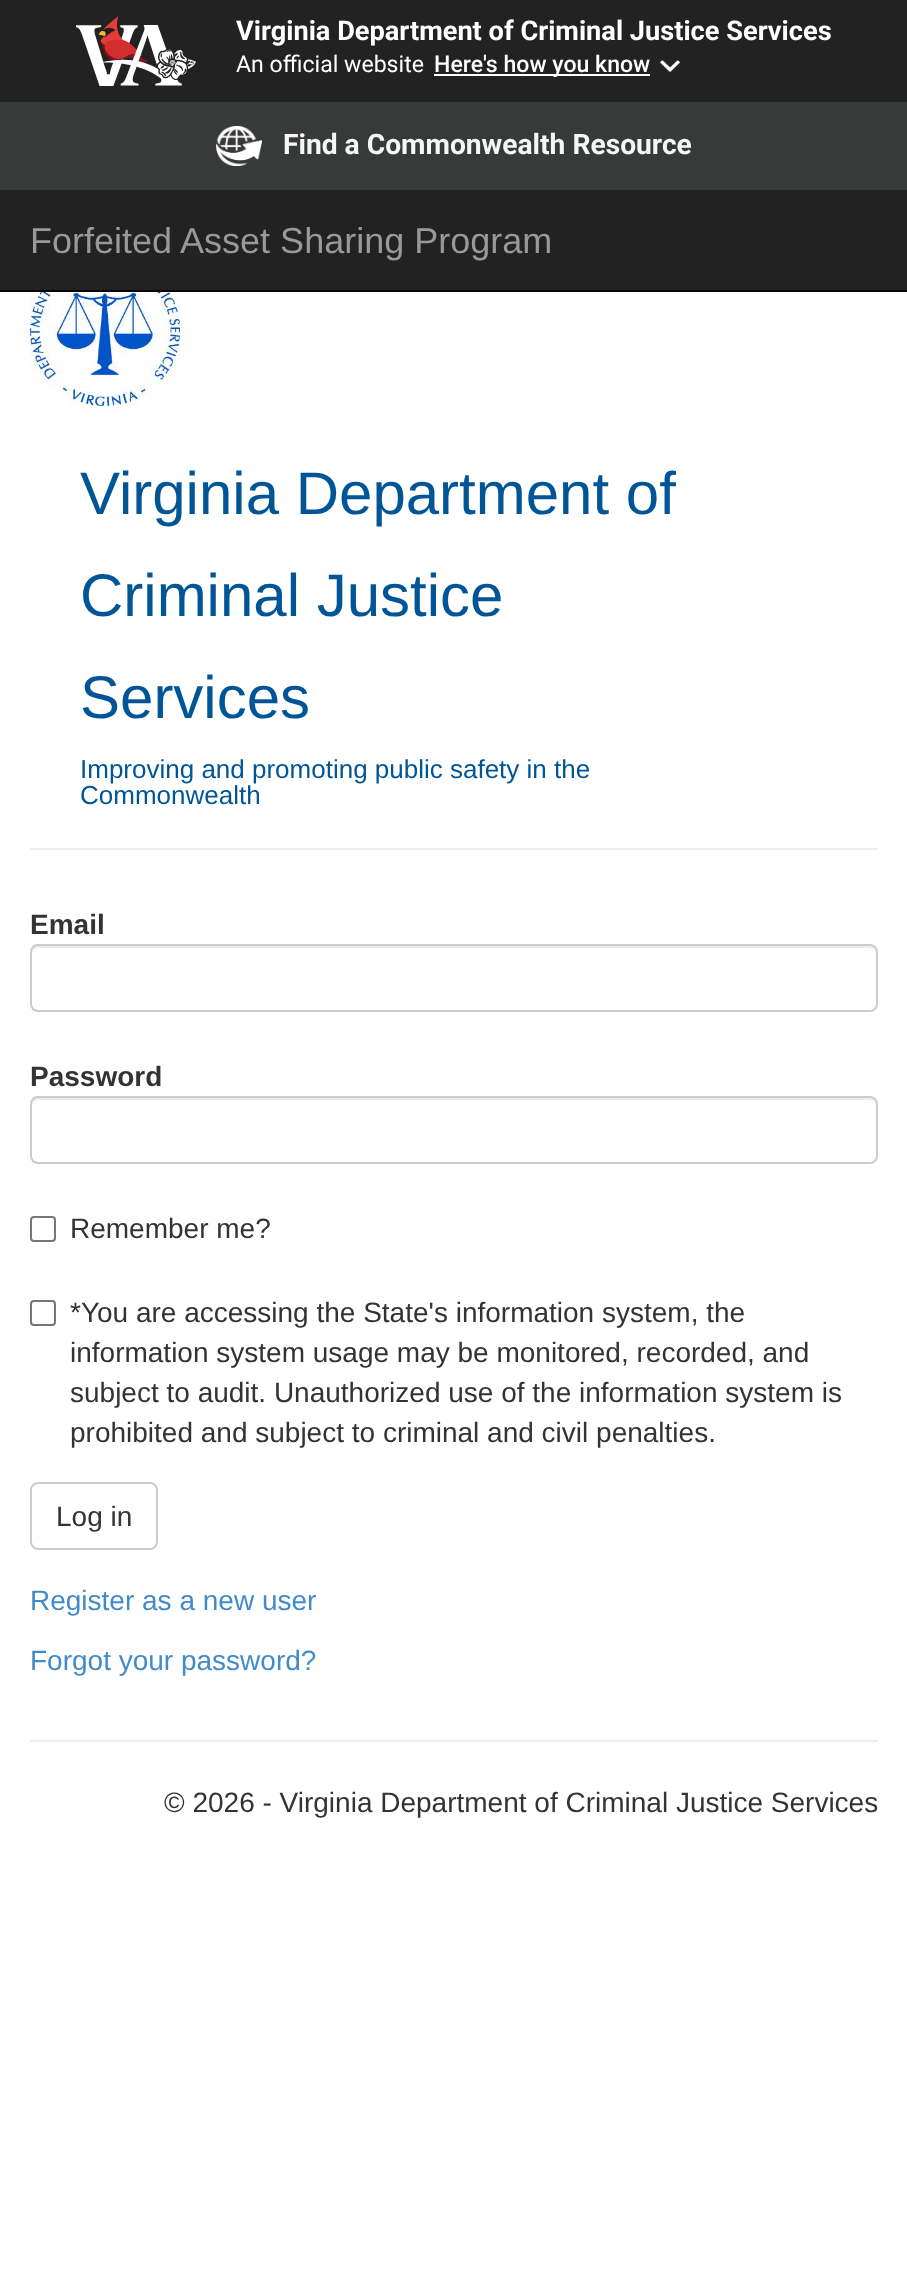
(async () => {
const canvas = document.querySelector("canvas")
canvas.width = 907
canvas.height = 2269
const c = canvas.getContext("2d")
c.miterLimit = 4
c.fontKerning = "normal"
function T(s,x,y){c.fillText(s,x,y)}
function R(x,y,w,h){c.fillRect(x,y,w,h)}
async function I(src,x,y,w,h){const img=new Image();img.src=src;await img.decode();c.drawImage(img,x,y,w,h)}
let path
c.fillStyle="#fff"
R(0,0,907,2269)
c.fillStyle="#222"
R(0,0,907,290)
c.fillStyle="#080808"
R(0,290,907,2)
await I("1.png",76,16,120,70)
c.font="bold 27.2px Roboto"
c.fillStyle="#fff"
T("Virginia Department of Criminal Justice Services",236,40)
c.font="23.1px Roboto"
T("An official website",236,72)
R(434,74,216,2)
c.font="500 23.1px Roboto"
T("Here's how you know",434,72)
await I("2.png",660,60,20,12)
c.fillStyle="#383939"
R(0,102,907,88)
await I("3.png",216,126,46,40)
c.font="bold 28.2px Roboto"
c.fillStyle="#f6f6f6"
T("Find a Commonwealth Resource",283,154)
c.font="36px Liberation Sans"
c.fillStyle="#999"
T("Forfeited Asset Sharing Program",30,253)
await I("4.png",30,292,150,114)
c.font="60px Liberation Sans"
c.fillStyle="#005596"
T("Virginia Department of",80,514)
T("Criminal Justice",80,616)
T("Services",80,718)
c.font="26px Liberation Sans"
T("Improving and promoting public safety in the",80,778)
T("Commonwealth",80,804)
c.fillStyle="#eee"
R(30,848,848,2)
c.font="bold 28px Liberation Sans"
c.fillStyle="#333"
T("Email",30,934)
c.fillStyle="#ececec"
path = new Path2D("M38 948h832c3 0 6 3 6 6c0-4-1-8-6-8h-832c-5 0-6 4-6 8c0-3 3-6 6-6z")
c.fill(path)
c.beginPath()
c.roundRect(31,945,846,66,7)
c.strokeStyle="#ccc"
c.lineWidth=2
c.stroke()
c.fillStyle="#333"
T("Password",30,1086)
c.fillStyle="#ececec"
path = new Path2D("M38 1100h832c3 0 6 3 6 6c0-4-1-8-6-8h-832c-5 0-6 4-6 8c0-3 3-6 6-6z")
c.fill(path)
c.beginPath()
c.roundRect(31,1097,846,66,7)
c.stroke()
c.beginPath()
c.roundRect(31,1217,24,24,3)
c.strokeStyle="#767676"
c.stroke()
c.font="28px Liberation Sans"
c.fillStyle="#333"
T("Remember me?",70,1238)
c.beginPath()
c.roundRect(31,1301,24,24,3)
c.stroke()
T("*You are accessing the State's information system, the",70,1322)
T("information system usage may be monitored, recorded, and",70,1362)
T("subject to audit. Unauthorized use of the information system is",70,1402)
T("prohibited and subject to criminal and civil penalties.",70,1442)
c.beginPath()
c.roundRect(31,1483,126,66,7)
c.strokeStyle="#ccc"
c.stroke()
T("Log in",56,1526)
c.fillStyle="#428bca"
T("Register as a new user",30,1610)
T("Forgot your password?",30,1670)
c.fillStyle="#eee"
R(30,1740,848,2)
c.fillStyle="#333"
T("© 2026 - Virginia Department of Criminal Justice Services",164,1812)
})()
